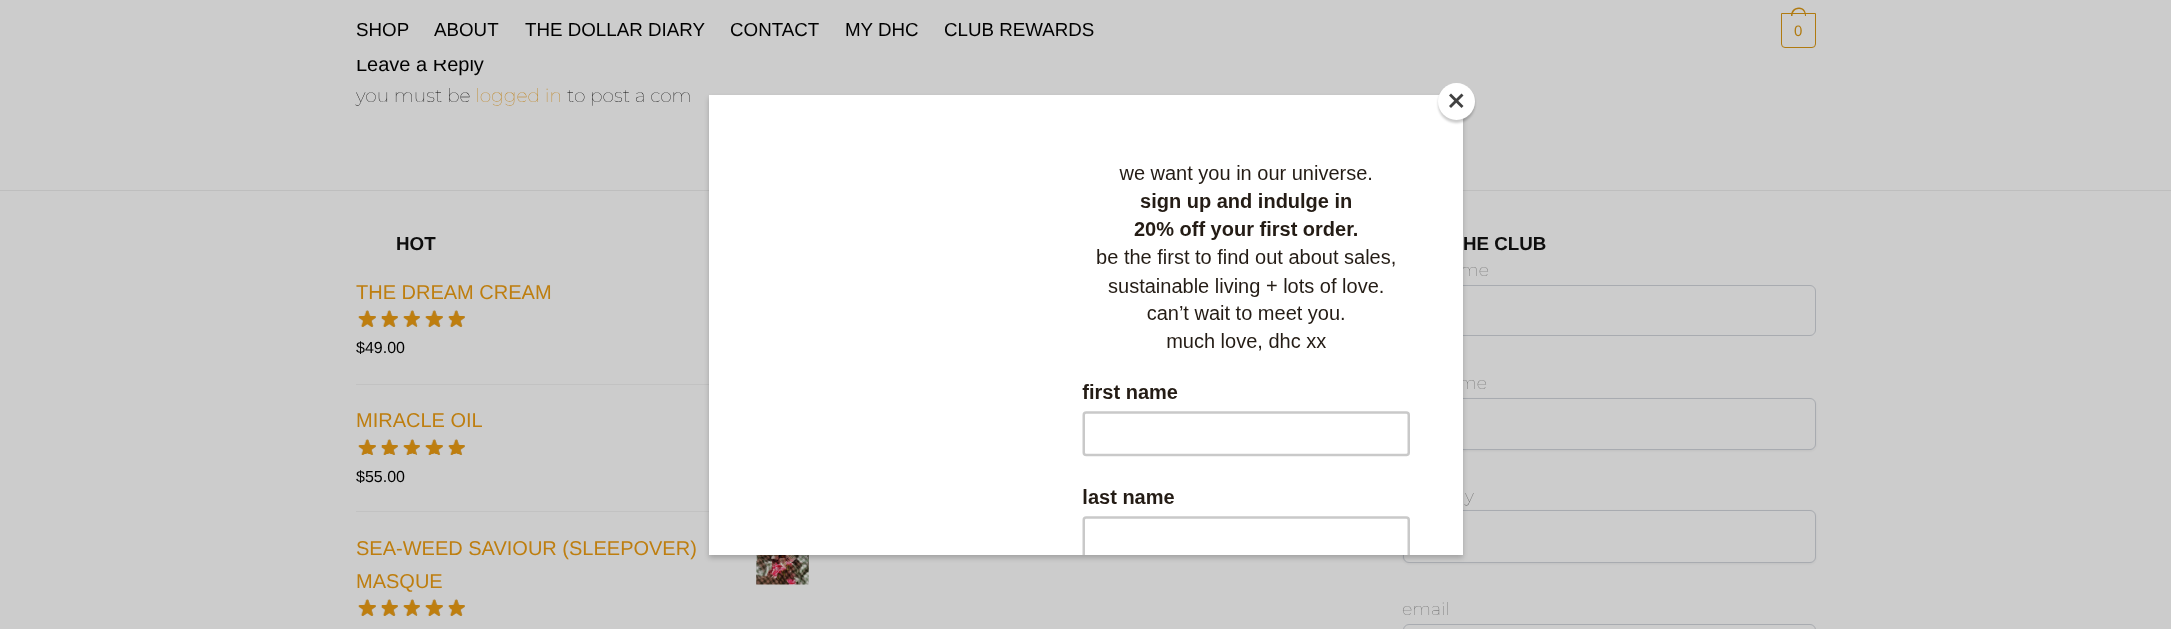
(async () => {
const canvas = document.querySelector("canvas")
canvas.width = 2171
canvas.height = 629
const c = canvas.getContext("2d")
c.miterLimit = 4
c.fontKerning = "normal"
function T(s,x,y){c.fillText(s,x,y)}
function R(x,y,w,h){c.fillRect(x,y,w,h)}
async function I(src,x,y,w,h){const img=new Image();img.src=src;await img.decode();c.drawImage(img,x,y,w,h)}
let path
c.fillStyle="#ccc"
R(0,0,2171,629)
c.font="20px Liberation Sans"
c.fillStyle="#000"
T("Leave a Reply",356,71)
c.fillStyle="#ccc"
R(357,56,116,4)
c.font="18.75px Liberation Sans"
c.fillStyle="#000"
T("SHOP",356,36)
T("ABOUT",434,36)
T("THE DOLLAR DIARY",525,36)
T("CONTACT",730,36)
T("MY DHC",845,36)
T("CLUB REWARDS",944,36)
c.beginPath()
c.roundRect(1781.5,13.5,34,34,[0,0,3.5,3.5])
c.strokeStyle="#b07a10"
c.stroke()
c.fillStyle="#b07a10"
path = new Path2D("M1799 7.5c5 0 7 4 7 8.5h-15c0-4.5 2.5-8.5 8-8.5zm0 1.5c4 0 6 3.5 6 7h-12.5c0-3.5 2-7 6.5-7z")
c.fill(path,"evenodd")
c.letterSpacing="-1px"
c.font="15px Liberation Sans"
T("0",1794,36)
c.letterSpacing="0px"
c.font="100 18.75px Montserrat"
c.fillStyle="#000"
T("you must be",356,102)
c.fillStyle="#be7e0f"
T("logged in",475,102)
c.fillStyle="#000"
T("to post a com",567,102)
c.fillStyle="#bebebe"
R(0,190,2171,1)
c.font="bold 18.75px Liberation Sans"
c.fillStyle="#0e0e0e"
T("HOT",396,250)
c.fillStyle="#c2c2c2"
R(356,384,353,1)
c.font="20px Liberation Sans"
c.fillStyle="#be7e0f"
T("THE DREAM CREAM",356,299)
await I("2.png",359,310,106,17)
await I("1.png",358,310,107,17)
c.font="16px Liberation Sans"
c.fillStyle="#000"
T("$49.00",356,353)
c.fillStyle="#c2c2c2"
R(356,511,353,1)
c.font="20px Liberation Sans"
c.fillStyle="#be7e0f"
T("MIRACLE OIL",356,427)
await I("4.png",359,439,106,16)
await I("3.png",358,439,107,16)
c.font="16px Liberation Sans"
c.fillStyle="#000"
T("$55.00",356,482)
c.font="20px Liberation Sans"
c.fillStyle="#be7e0f"
T("SEA-WEED SAVIOUR (SLEEPOVER)",356,555)
T("MASQUE",356,588)
await I("5.png",756,555,53,30)
await I("2.png",359,599,106,17)
await I("1.png",358,599,107,17)
c.font="bold 18.75px Liberation Sans"
c.fillStyle="#0e0e0e"
T("HE CLUB",1463,250)
c.font="100 17.5px Montserrat"
c.fillStyle="#5f5f5f"
T("me",1460,276)
c.beginPath()
c.roundRect(1403.5,285.5,412,50,5.5)
c.strokeStyle="#a8abb0"
c.stroke()
T("me",1458,389)
c.fillStyle="#0000000d"
c.filter="blur(1px)"
c.beginPath()
c.roundRect(1403,399,413,52,6)
c.fill()
c.filter="none"
c.fillStyle="#ccc"
c.beginPath()
c.roundRect(1403.5,398.5,412,51,5.5)
c.fill()
c.stroke()
c.fillStyle="#5f5f5f"
T("y",1465,502)
c.fillStyle="#0000000d"
c.filter="blur(1px)"
c.beginPath()
c.roundRect(1403,511,413,53,6)
c.fill()
c.filter="none"
c.fillStyle="#ccc"
c.beginPath()
c.roundRect(1403.5,510.5,412,52,5.5)
c.fill()
c.stroke()
c.fillStyle="#5f5f5f"
T("email",1402,615)
c.beginPath()
c.roundRect(1403.5,624.5,412,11,5.5)
c.stroke()
c.fillStyle="#00000033"
c.filter="blur(2.5px)"
c.beginPath()
c.rect(709,98,754,460)
c.fill()
c.filter="none"
await I("6.png",709,95,754,460)
c.filter="blur(1px)"
c.beginPath()
c.roundRect(1438,85,37,38,18.5)
c.fill()
c.filter="none"
c.fillStyle="#fff"
c.beginPath()
c.arc(1456.5,101.5,18.5,0,7)
c.fill()
c.fillStyle="#414141"
path = new Path2D("M1461.5 93.5l2 2l-12.5 12.5l-2-2z")
c.fill(path)
path = new Path2D("M1449 95.5l2-2l12.5 12.5l-2 2z")
c.fill(path)
})()
